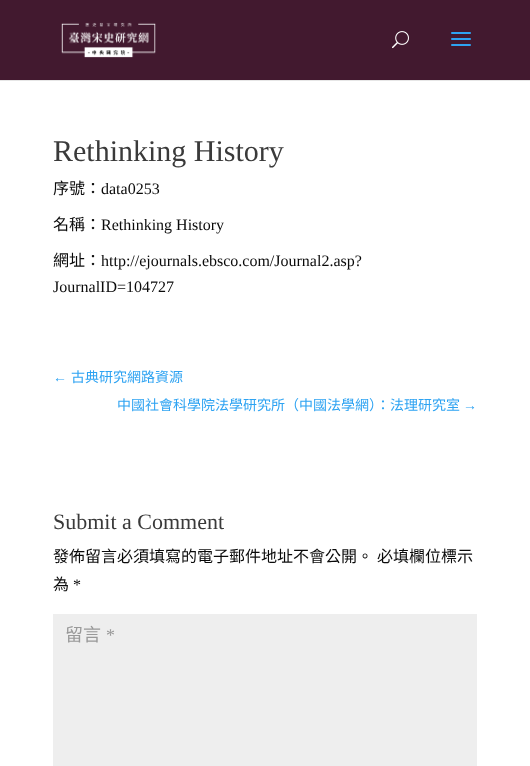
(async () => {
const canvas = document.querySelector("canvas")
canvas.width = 530
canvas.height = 766
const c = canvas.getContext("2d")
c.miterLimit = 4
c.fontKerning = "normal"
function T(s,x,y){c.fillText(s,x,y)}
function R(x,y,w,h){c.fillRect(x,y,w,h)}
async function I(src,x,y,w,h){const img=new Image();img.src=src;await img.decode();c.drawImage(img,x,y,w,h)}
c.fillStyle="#fff"
R(0,0,530,766)
c.fillStyle="#e6e6e6"
R(0,80,530,1)
c.fillStyle="#42192f"
R(0,0,530,80)
await I("1.png",61,22,95,36)
await I("2.png",392,31,17,18)
await I("3.png",451,32,20,14)
c.font="30px Liberation Serif"
c.fillStyle="#3a3a3a"
T("Rethinking History",53,161)
c.font="16px Noto Sans CJK TC"
c.fillStyle="#0a0a0a"
T("序號：",53,194)
c.font="16px Liberation Serif"
T("data0253",101,194)
c.font="16px Noto Sans CJK TC"
T("名稱：",53,230)
c.font="16px Liberation Serif"
T("Rethinking History",101,230)
c.font="16px Noto Sans CJK TC"
T("網址：",53,266)
c.font="16px Liberation Serif"
T("http://ejournals.ebsco.com/Journal2.asp?",101,266)
T("JournalID=104727",53,292)
c.font="14px Liberation Serif"
c.fillStyle="#2ea3f2"
T("←",53,382)
c.font="14px Noto Sans CJK TC"
T("古典研究網路資源",71,382)
T("中國社會科學院法學研究所（中國法學網）：法理研究室",117,410)
c.font="14px Liberation Serif"
T("→",463,410)
c.font="22px Liberation Serif"
c.fillStyle="#3a3a3a"
T("Submit a Comment",53,529)
c.font="16px Noto Sans CJK TC"
c.fillStyle="#0a0a0a"
T("發佈留言必須填寫的電子郵件地址不會公開。",53,562)
T("必填欄位標示",377,562)
T("為",53,590)
c.font="16px Liberation Serif"
T("*",73,590)
c.fillStyle="#eee"
R(53,614,424,152)
c.font="18px Noto Sans CJK TC"
c.fillStyle="#999"
T("留言",65,641)
c.font="18px Liberation Serif"
T("*",106,641)
})()
